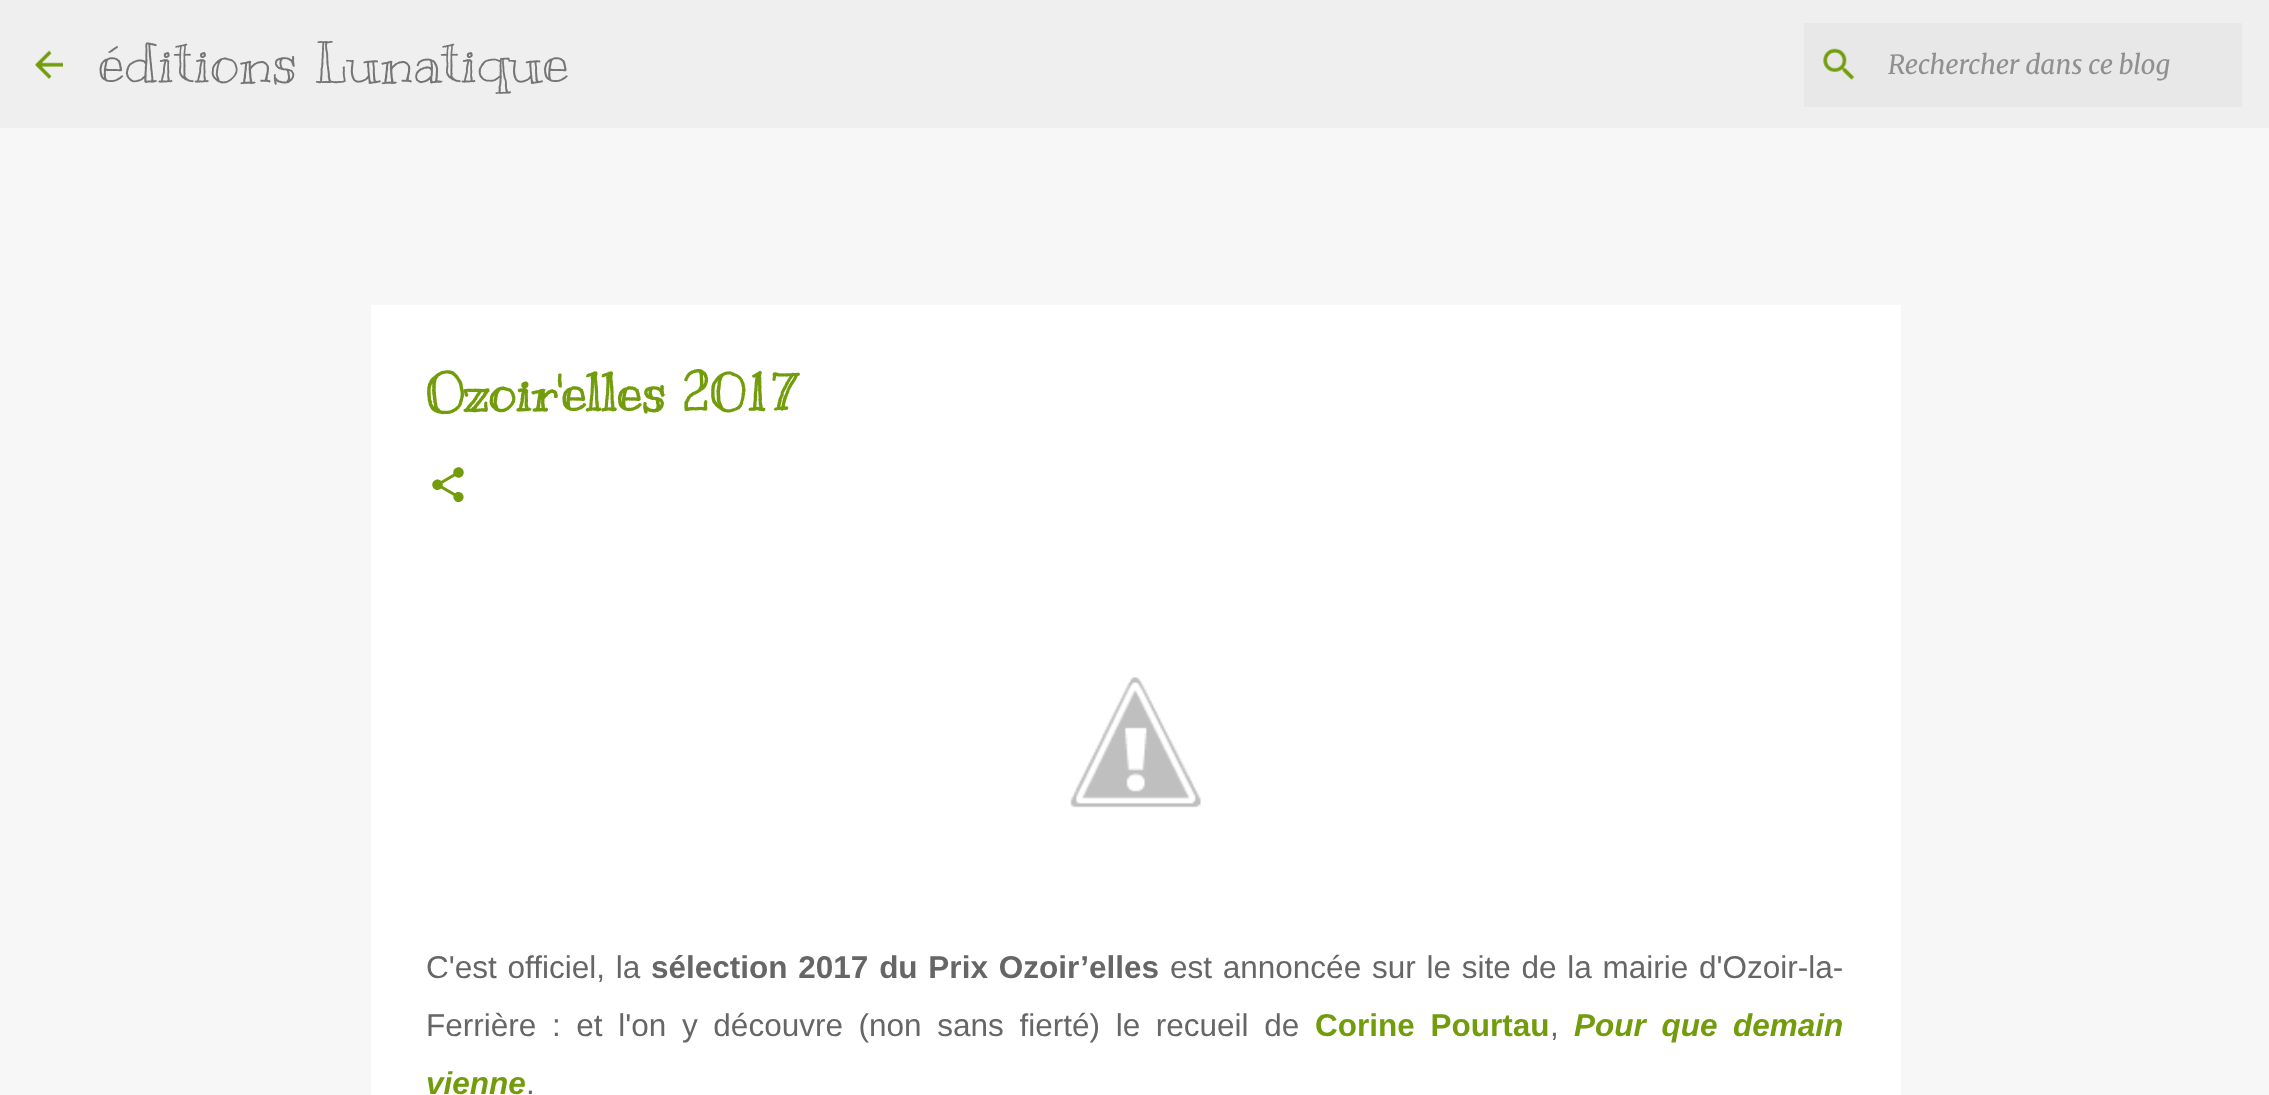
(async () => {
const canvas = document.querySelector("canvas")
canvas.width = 2269
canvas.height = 1095
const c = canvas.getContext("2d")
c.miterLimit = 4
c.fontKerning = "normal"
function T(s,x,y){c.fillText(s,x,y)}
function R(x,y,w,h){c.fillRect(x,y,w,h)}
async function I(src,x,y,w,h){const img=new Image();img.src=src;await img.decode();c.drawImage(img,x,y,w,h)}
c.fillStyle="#f7f7f7"
R(0,0,2269,1095)
c.fillStyle="#efefef"
R(0,0,2269,128)
await I("1.png",35,50,28,29)
c.font="56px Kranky"
c.fillStyle="#757575"
T("éditions Lunatique",98,82)
c.fillStyle="#e8e8e8"
R(1804,23,438,84)
await I("2.png",1823,48,32,32)
c.font="italic 300 26.25px Merriweather"
c.fillStyle="#909090"
T("Rechercher dans ce blog",1888,74)
c.fillStyle="#fff"
R(371,305,1530,790)
c.font="bold 52.5px Kranky"
c.fillStyle="#729c0b"
T("Ozoir'elles 2017",426,411)
await I("3.png",432,467,32,35)
await I("4.png",1070,677,131,131)
c.wordSpacing="2px"
c.font="31.5px Liberation Sans"
c.fillStyle="#666"
T("C'est officiel, la",426,978)
c.font="bold 31.5px Liberation Sans"
T("sélection 2017 du Prix Ozoir’elles",651,978)
c.font="31.5px Liberation Sans"
T("est annoncée sur le site de la mairie d'Ozoir-la-",1170,978)
c.wordSpacing="6.9px"
T("Ferrière : et l'on y découvre (non sans fierté) le recueil de",426,1036)
c.font="bold 31.5px Liberation Sans"
c.fillStyle="#729c0b"
T("Corine Pourtau",1315,1036)
c.wordSpacing="0px"
c.font="31.5px Liberation Sans"
c.fillStyle="#666"
T(",",1550,1036)
c.wordSpacing="6.9px"
c.font="italic bold 31.5px Liberation Sans"
c.fillStyle="#729c0b"
T("Pour que demain",1574,1036)
c.wordSpacing="0px"
T("vienne",426,1094)
c.font="31.5px Liberation Sans"
c.fillStyle="#666"
T(".",526,1094)
})()
